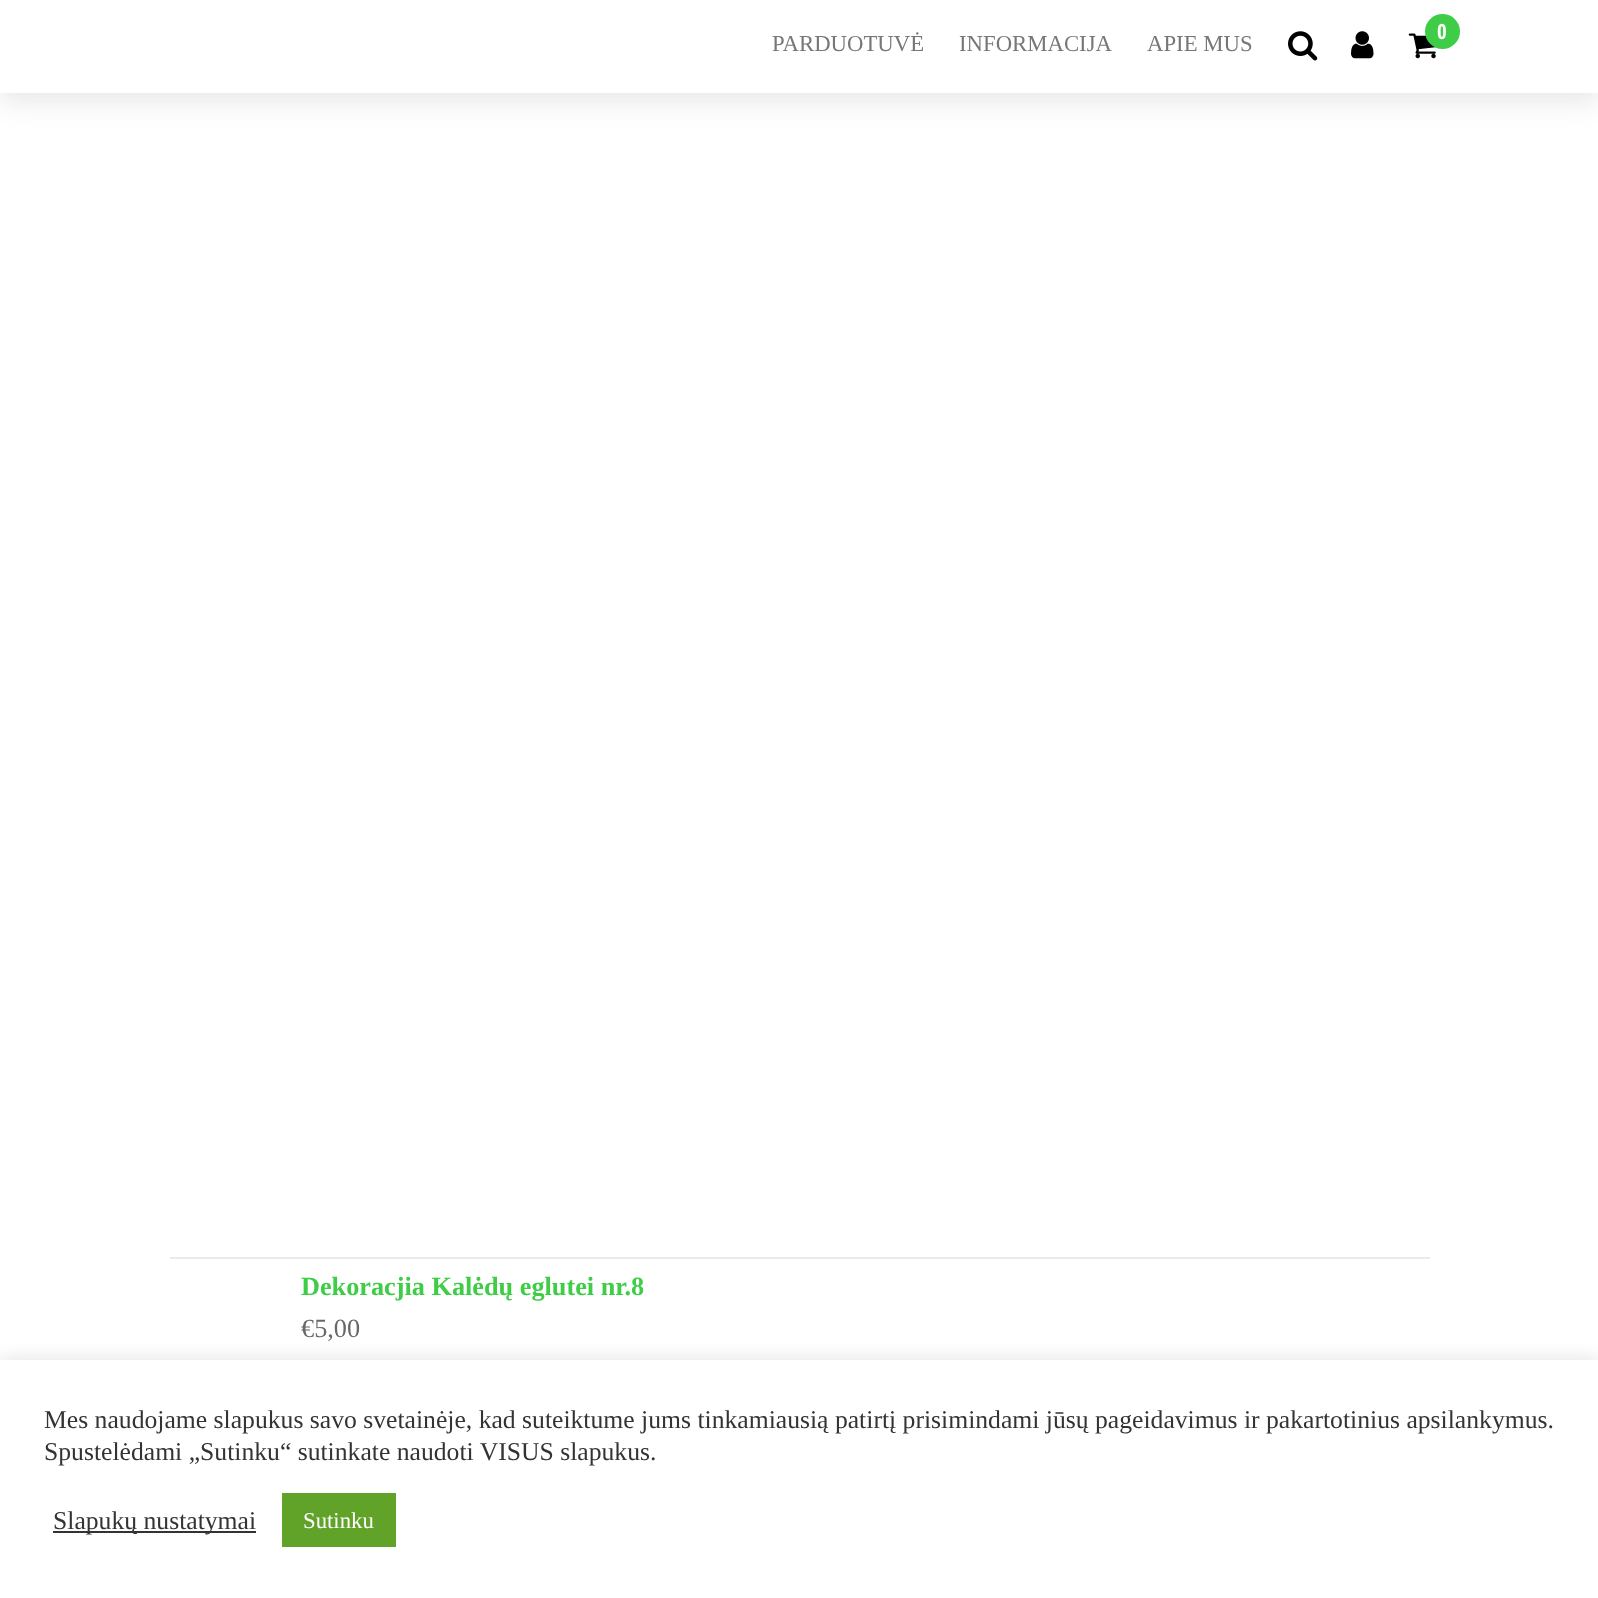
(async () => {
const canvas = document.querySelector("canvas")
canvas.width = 1598
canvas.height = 1598
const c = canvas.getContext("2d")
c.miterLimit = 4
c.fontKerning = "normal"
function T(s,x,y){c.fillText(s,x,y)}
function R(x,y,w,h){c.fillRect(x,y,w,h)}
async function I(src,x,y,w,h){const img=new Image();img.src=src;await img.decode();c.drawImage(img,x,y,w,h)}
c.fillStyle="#fff"
R(0,0,1598,1598)
c.fillStyle="#0000001a"
c.filter="blur(14px)"
c.beginPath()
c.rect(0,7,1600,93)
c.fill()
c.filter="none"
c.fillStyle="#fff"
R(0,0,1598,93)
c.font="22.75px Liberation Serif"
c.fillStyle="#777"
T("PARDUOTUVĖ",772,51)
T("INFORMACIJA",959,51)
T("APIE MUS",1147,51)
await I("1.png",1288,31,30,30)
await I("2.png",1351,31,23,28)
await I("3.png",1408,33,29,26)
c.fillStyle="#3fcc46"
c.beginPath()
c.arc(1442.5,31.5,17.5,0,7)
c.fill()
c.font="bold 21px Open Sans Condensed"
c.fillStyle="#fff"
T("0",1437,39)
c.fillStyle="#ebebeb"
R(170,1257,1260,2)
c.font="bold 26.25px Liberation Serif"
c.fillStyle="#3fcc46"
T("Dekoracjia Kalėdų eglutei nr.8",301,1295)
c.font="26.25px Liberation Serif"
c.fillStyle="#686868"
T("€5,00",301,1337)
c.save()
c.beginPath()
c.rect(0,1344,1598,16)
c.clip()
c.fillStyle="#acabab4d"
c.filter="blur(9px)"
c.beginPath()
c.rect(0,1358,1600,240)
c.fill()
c.filter="none"
c.restore()
c.font="25.67px Liberation Serif"
c.fillStyle="#333"
T("Mes naudojame slapukus savo svetainėje, kad suteiktume jums tinkamiausią patirtį prisimindami jūsų pageidavimus ir pakartotinius apsilankymus.",44,1428)
T("Spustelėdami „Sutinku“ sutinkate naudoti VISUS slapukus.",44,1460)
R(53,1531,203,2)
T("Slapukų nustatymai",53,1529)
c.fillStyle="#61a229"
R(282,1493,114,54)
c.font="22.75px Liberation Serif"
c.fillStyle="#fff"
T("Sutinku",303,1528)
})()
